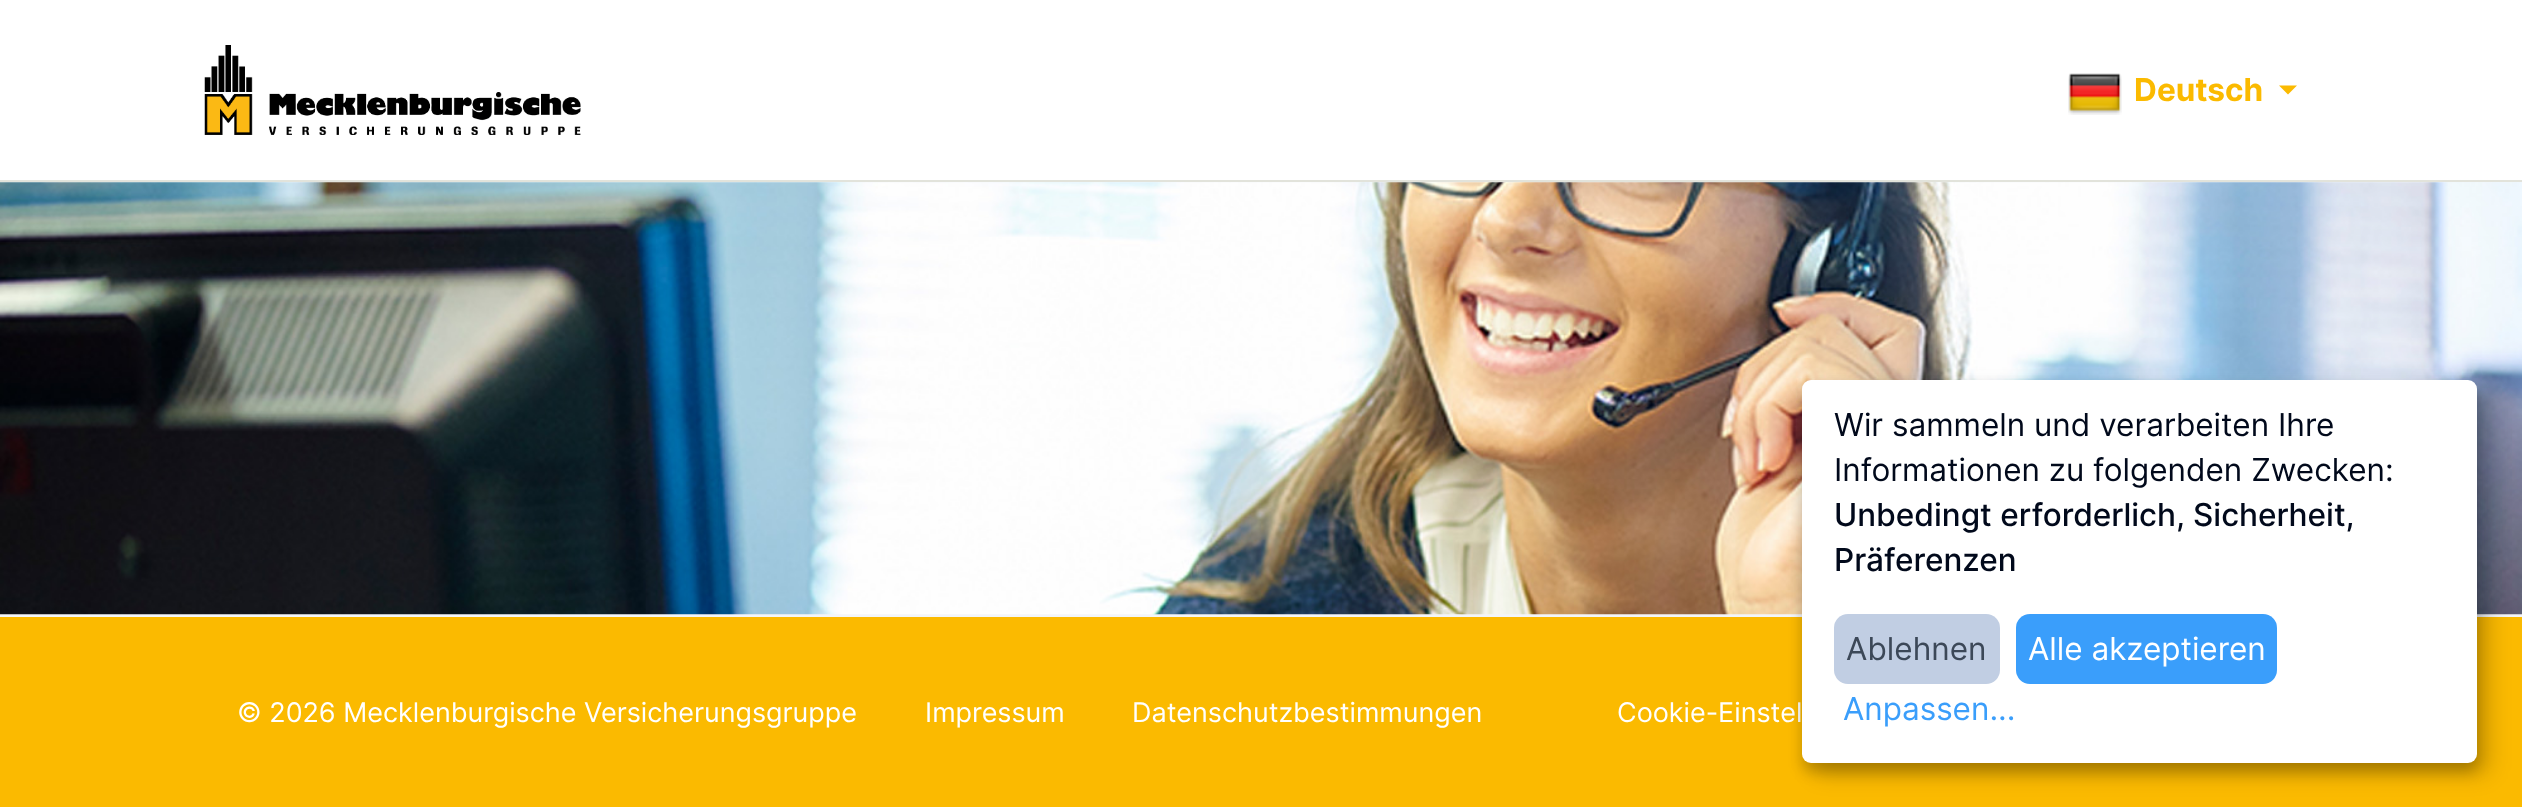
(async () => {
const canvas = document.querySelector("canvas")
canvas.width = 2522
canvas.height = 807
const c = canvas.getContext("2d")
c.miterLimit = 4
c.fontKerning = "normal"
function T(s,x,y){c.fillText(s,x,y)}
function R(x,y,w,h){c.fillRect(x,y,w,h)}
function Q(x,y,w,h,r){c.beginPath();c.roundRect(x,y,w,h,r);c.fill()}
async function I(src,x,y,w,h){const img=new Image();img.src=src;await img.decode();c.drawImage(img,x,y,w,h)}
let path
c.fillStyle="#fbba00"
R(0,0,2522,807)
c.fillStyle="#fff"
R(0,0,2522,180)
c.fillStyle="#e2e3db"
R(0,180,2522,2)
await I("1.png",204,45,377,90)
await I("2.png",2068,73,54,42)
c.font="bold 31.5px Inter"
c.fillStyle="#fbba00"
T("Deutsch",2134,101)
path = new Path2D("M2279 85.5h18l-9 9z")
c.fill(path)
c.fillStyle="#f3f5f9"
R(0,182,2522,435)
await I("3.png",0,182,2522,433)
c.font="27px Inter"
c.fillStyle="#fff"
T("© 2026 Mecklenburgische Versicherungsgruppe",237,722)
T("Impressum",925,722)
T("Datenschutzbestimmungen",1132,722)
T("Cookie-Einstel",1617,722)
c.fillStyle="#00000030"
c.filter="blur(11px)"
c.beginPath()
c.roundRect(1814,392,675,382,9)
c.fill()
c.filter="none"
c.fillStyle="#00000033"
c.filter="blur(7px)"
c.beginPath()
c.roundRect(1802,389,675,383,9)
c.fill()
c.filter="none"
c.fillStyle="#fff"
Q(1802,380,675,383,9)
c.font="31.5px Inter"
c.fillStyle="#01091b"
T("Wir sammeln und verarbeiten Ihre",1834,436)
T("Informationen zu folgenden Zwecken:",1834,481)
c.font="500 31.5px Inter"
T("Unbedingt erforderlich, Sicherheit,",1834,526)
T("Präferenzen",1834,571)
c.fillStyle="#c1cee3"
Q(1834,614,166,70,14)
c.font="31.5px Inter"
c.fillStyle="#3c4858"
T("Ablehnen",1846,660)
c.fillStyle="#3a9efb"
Q(2016,614,261,70,14)
c.fillStyle="#fff"
T("Alle akzeptieren",2028,660)
c.fillStyle="#3a9efb"
T("Anpassen...",1843,720)
})()
